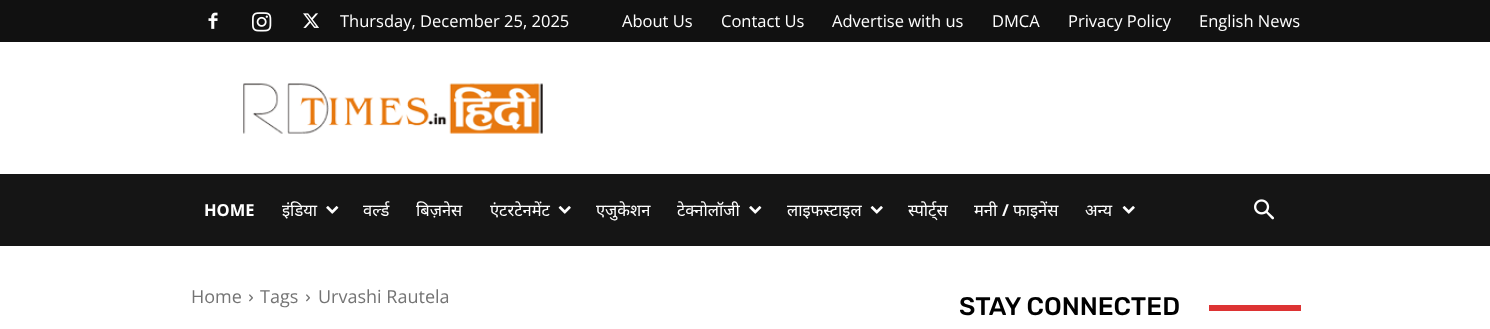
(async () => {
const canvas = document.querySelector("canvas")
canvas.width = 1490
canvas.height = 329
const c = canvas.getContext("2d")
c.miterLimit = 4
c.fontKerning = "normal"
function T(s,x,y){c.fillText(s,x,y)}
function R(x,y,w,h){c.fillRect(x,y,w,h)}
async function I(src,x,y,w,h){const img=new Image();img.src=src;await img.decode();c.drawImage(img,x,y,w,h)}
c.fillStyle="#fff"
R(0,0,1490,329)
c.fillStyle="#111"
R(0,0,1490,42)
await I("1.png",208,12,10,17)
await I("2.png",252,12,20,20)
await I("3.png",303,13,16,15)
c.font="16.5px Open Sans"
c.fillStyle="#fff"
T("Thursday, December 25, 2025",340,27)
T("About Us",622,27)
T("Contact Us",721,27)
T("Advertise with us",832,27)
T("DMCA",992,27)
T("Privacy Policy",1068,27)
T("English News",1199,27)
await I("4.png",243,83,300,51)
c.fillStyle="#151515"
R(0,174,1490,72)
c.font="bold 16.5px Open Sans"
c.fillStyle="#fff"
T("HOME",204,216)
c.font="16.5px Noto Sans"
T("इंडिया",282,216)
await I("5.png",326,206,13,8)
T("वर्ल्ड",363,216)
T("बिज़नेस",416,216)
T("एंटरटेनमेंट",490,216)
await I("6.png",558,206,13,8)
T("एजुकेशन",596,216)
T("टेक्नोलॉजी",677,216)
await I("5.png",749,206,13,8)
T("लाइफस्टाइल",787,216)
await I("6.png",870,206,13,8)
T("स्पोर्ट्स",908,216)
T("मनी",974,216)
c.font="bold 16.5px Open Sans"
T("/",1002,216)
c.font="16.5px Noto Sans"
T("फाइनेंस",1013,216)
T("अन्य",1085,216)
await I("6.png",1122,206,13,8)
await I("7.png",1254,199,20,21)
c.font="18px Open Sans"
c.fillStyle="#747474"
T("Home",191,303)
await I("8.png",249,294,4,8)
T("Tags",260,303)
await I("8.png",306,294,4,8)
T("Urvashi Rautela",318,303)
c.font="500 25.5px Rubik"
c.fillStyle="#000"
T("STAY CONNECTED",959,315)
c.fillStyle="#d33"
R(1209,305,92,6)
})()
